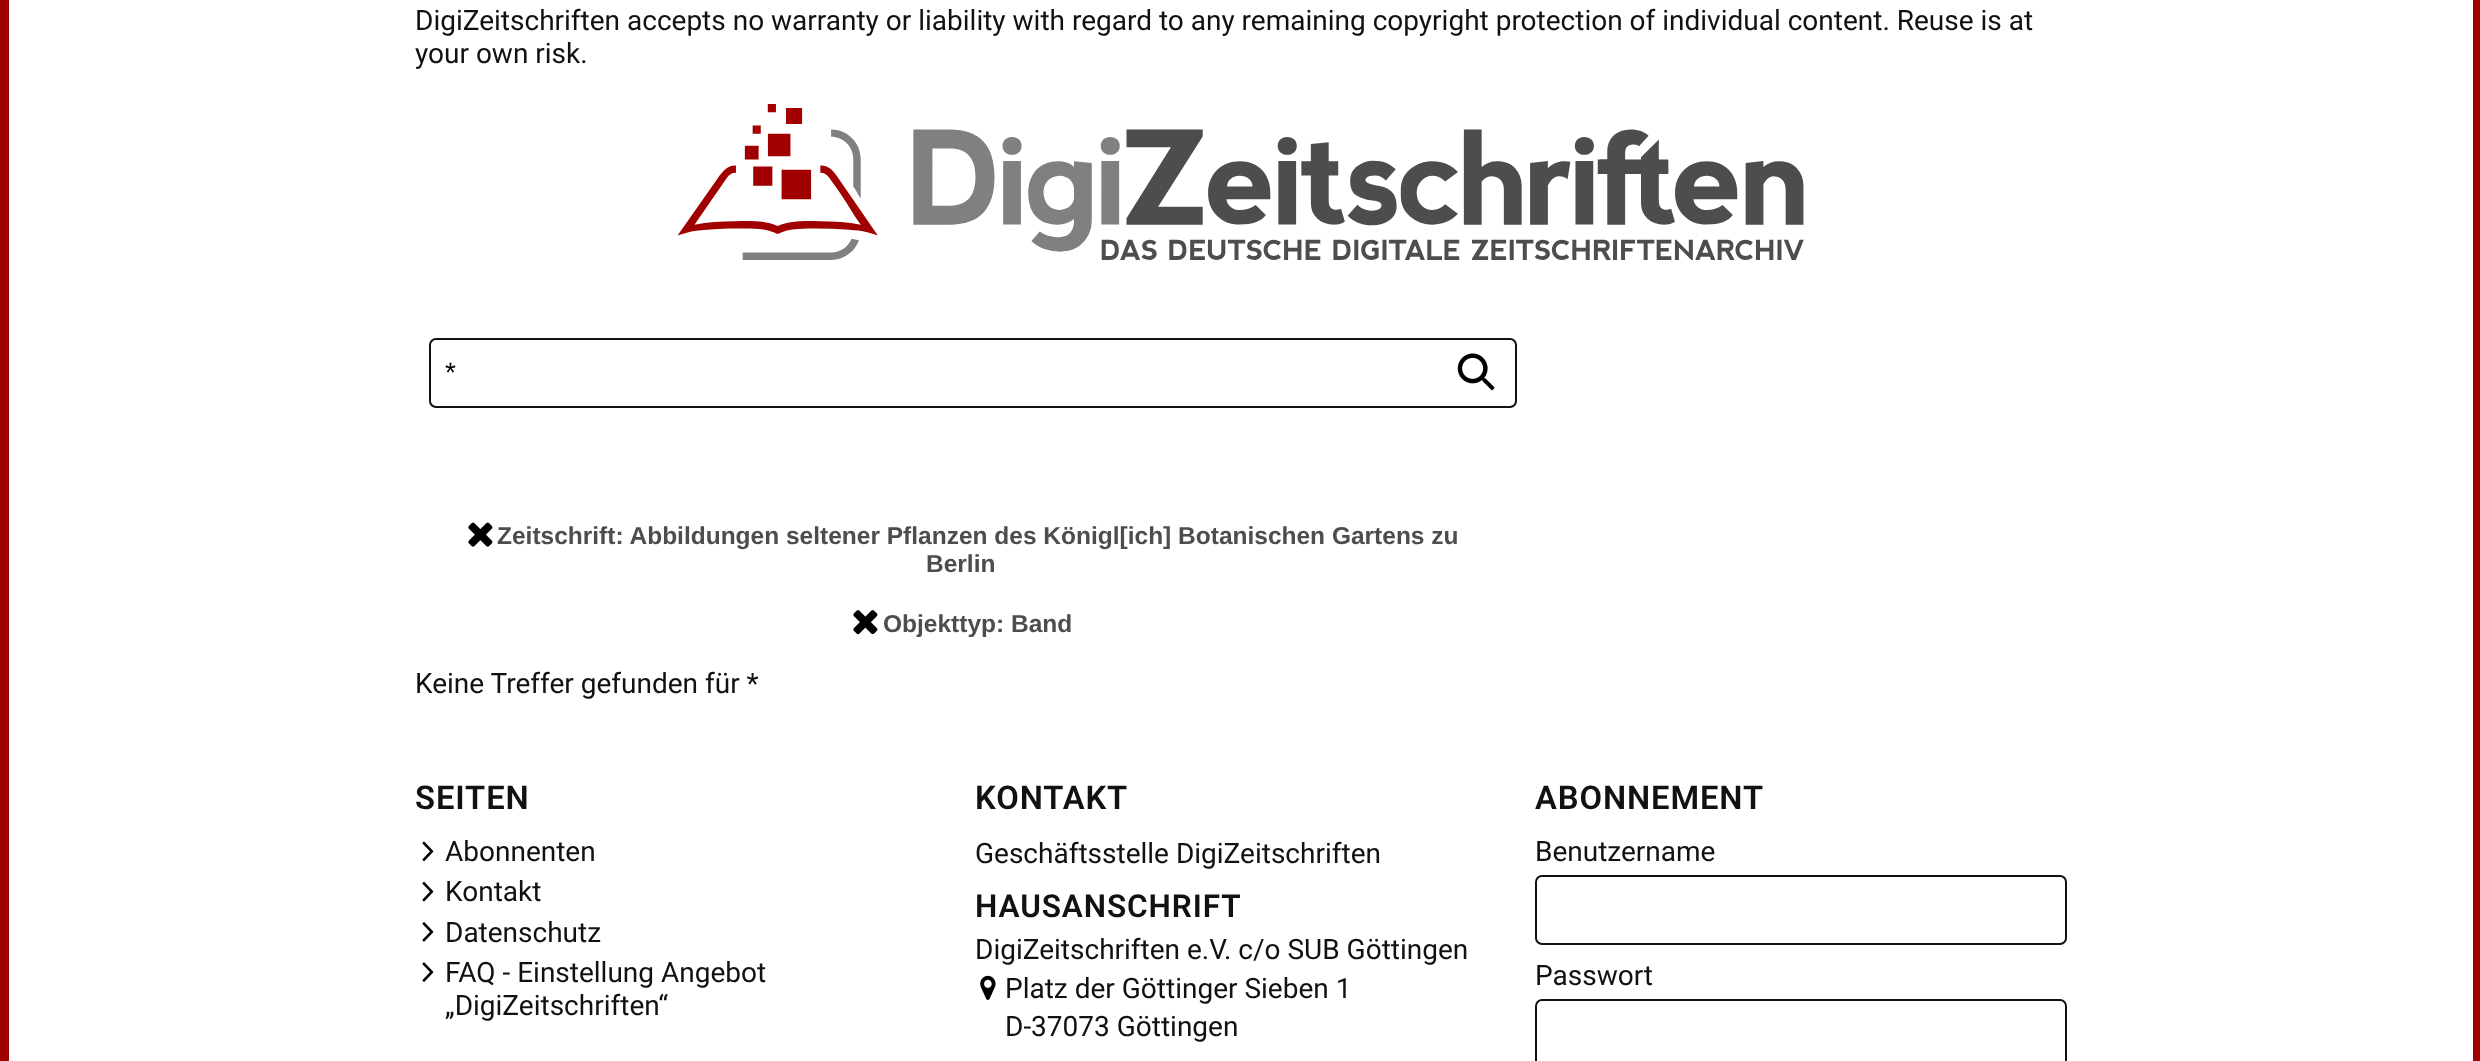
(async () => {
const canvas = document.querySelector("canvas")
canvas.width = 2480
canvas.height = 1061
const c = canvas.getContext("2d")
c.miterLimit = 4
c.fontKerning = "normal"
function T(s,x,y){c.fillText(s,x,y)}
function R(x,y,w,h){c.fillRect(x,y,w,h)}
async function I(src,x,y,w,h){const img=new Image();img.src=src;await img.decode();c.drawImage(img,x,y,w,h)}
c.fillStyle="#a10000"
R(0,0,2480,1061)
c.fillStyle="#fff"
R(9,0,2464,1061)
c.font="28px Roboto"
c.fillStyle="#111"
T("DigiZeitschriften accepts no warranty or liability with regard to any remaining copyright protection of individual content. Reuse is at",415,30)
T("your own risk.",415,63)
await I("1.png",677,104,1127,156)
c.beginPath()
c.roundRect(430,339,1086,68,6)
c.strokeStyle="#111"
c.lineWidth=2
c.stroke()
c.font="28px Liberation Sans"
c.fillStyle="#000"
T("*",445,382)
await I("2.png",1457,353,38,38)
await I("3.png",468,522,25,25)
c.font="bold 24.5px Liberation Sans"
c.fillStyle="#4d4d4d"
T("Zeitschrift: Abbildungen seltener Pflanzen des Königl[ich] Botanischen Gartens zu",497,544)
T("Berlin",926,572)
await I("4.png",853,610,25,25)
T("Objekttyp: Band",883,632)
c.font="28px Roboto"
c.fillStyle="#111"
T("Keine Treffer gefunden für *",415,693)
c.letterSpacing="0.9px"
c.font="600 32.75px Roboto"
T("SEITEN",415,809)
await I("5.png",422,841,12,21)
c.letterSpacing="0px"
c.font="28px Roboto"
T("Abonnenten",445,861)
await I("6.png",422,881,12,21)
T("Kontakt",445,901)
await I("7.png",422,922,12,20)
T("Datenschutz",445,942)
await I("8.png",422,962,12,20)
T("FAQ - Einstellung Angebot",445,982)
T("„DigiZeitschriften“",445,1015)
c.letterSpacing="0.9px"
c.font="600 32.75px Roboto"
T("KONTAKT",975,809)
c.letterSpacing="0px"
c.font="28px Roboto"
T("Geschäftsstelle DigiZeitschriften",975,863)
c.letterSpacing="0.9px"
c.font="600 31.5px Roboto"
T("HAUSANSCHRIFT",975,917)
c.letterSpacing="0px"
c.font="28px Roboto"
T("DigiZeitschriften e.V. c/o SUB Göttingen",975,959)
await I("9.png",980,975,16,25)
T("Platz der Göttinger Sieben 1",1005,998)
T("D-37073 Göttingen",1005,1036)
c.letterSpacing="0.9px"
c.font="600 32.75px Roboto"
T("ABONNEMENT",1535,809)
c.letterSpacing="0px"
c.font="28px Roboto"
T("Benutzername",1535,861)
c.beginPath()
c.roundRect(1536,876,530,68,6)
c.stroke()
T("Passwort",1535,985)
c.beginPath()
c.roundRect(1536,1000,530,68,6)
c.stroke()
})()
